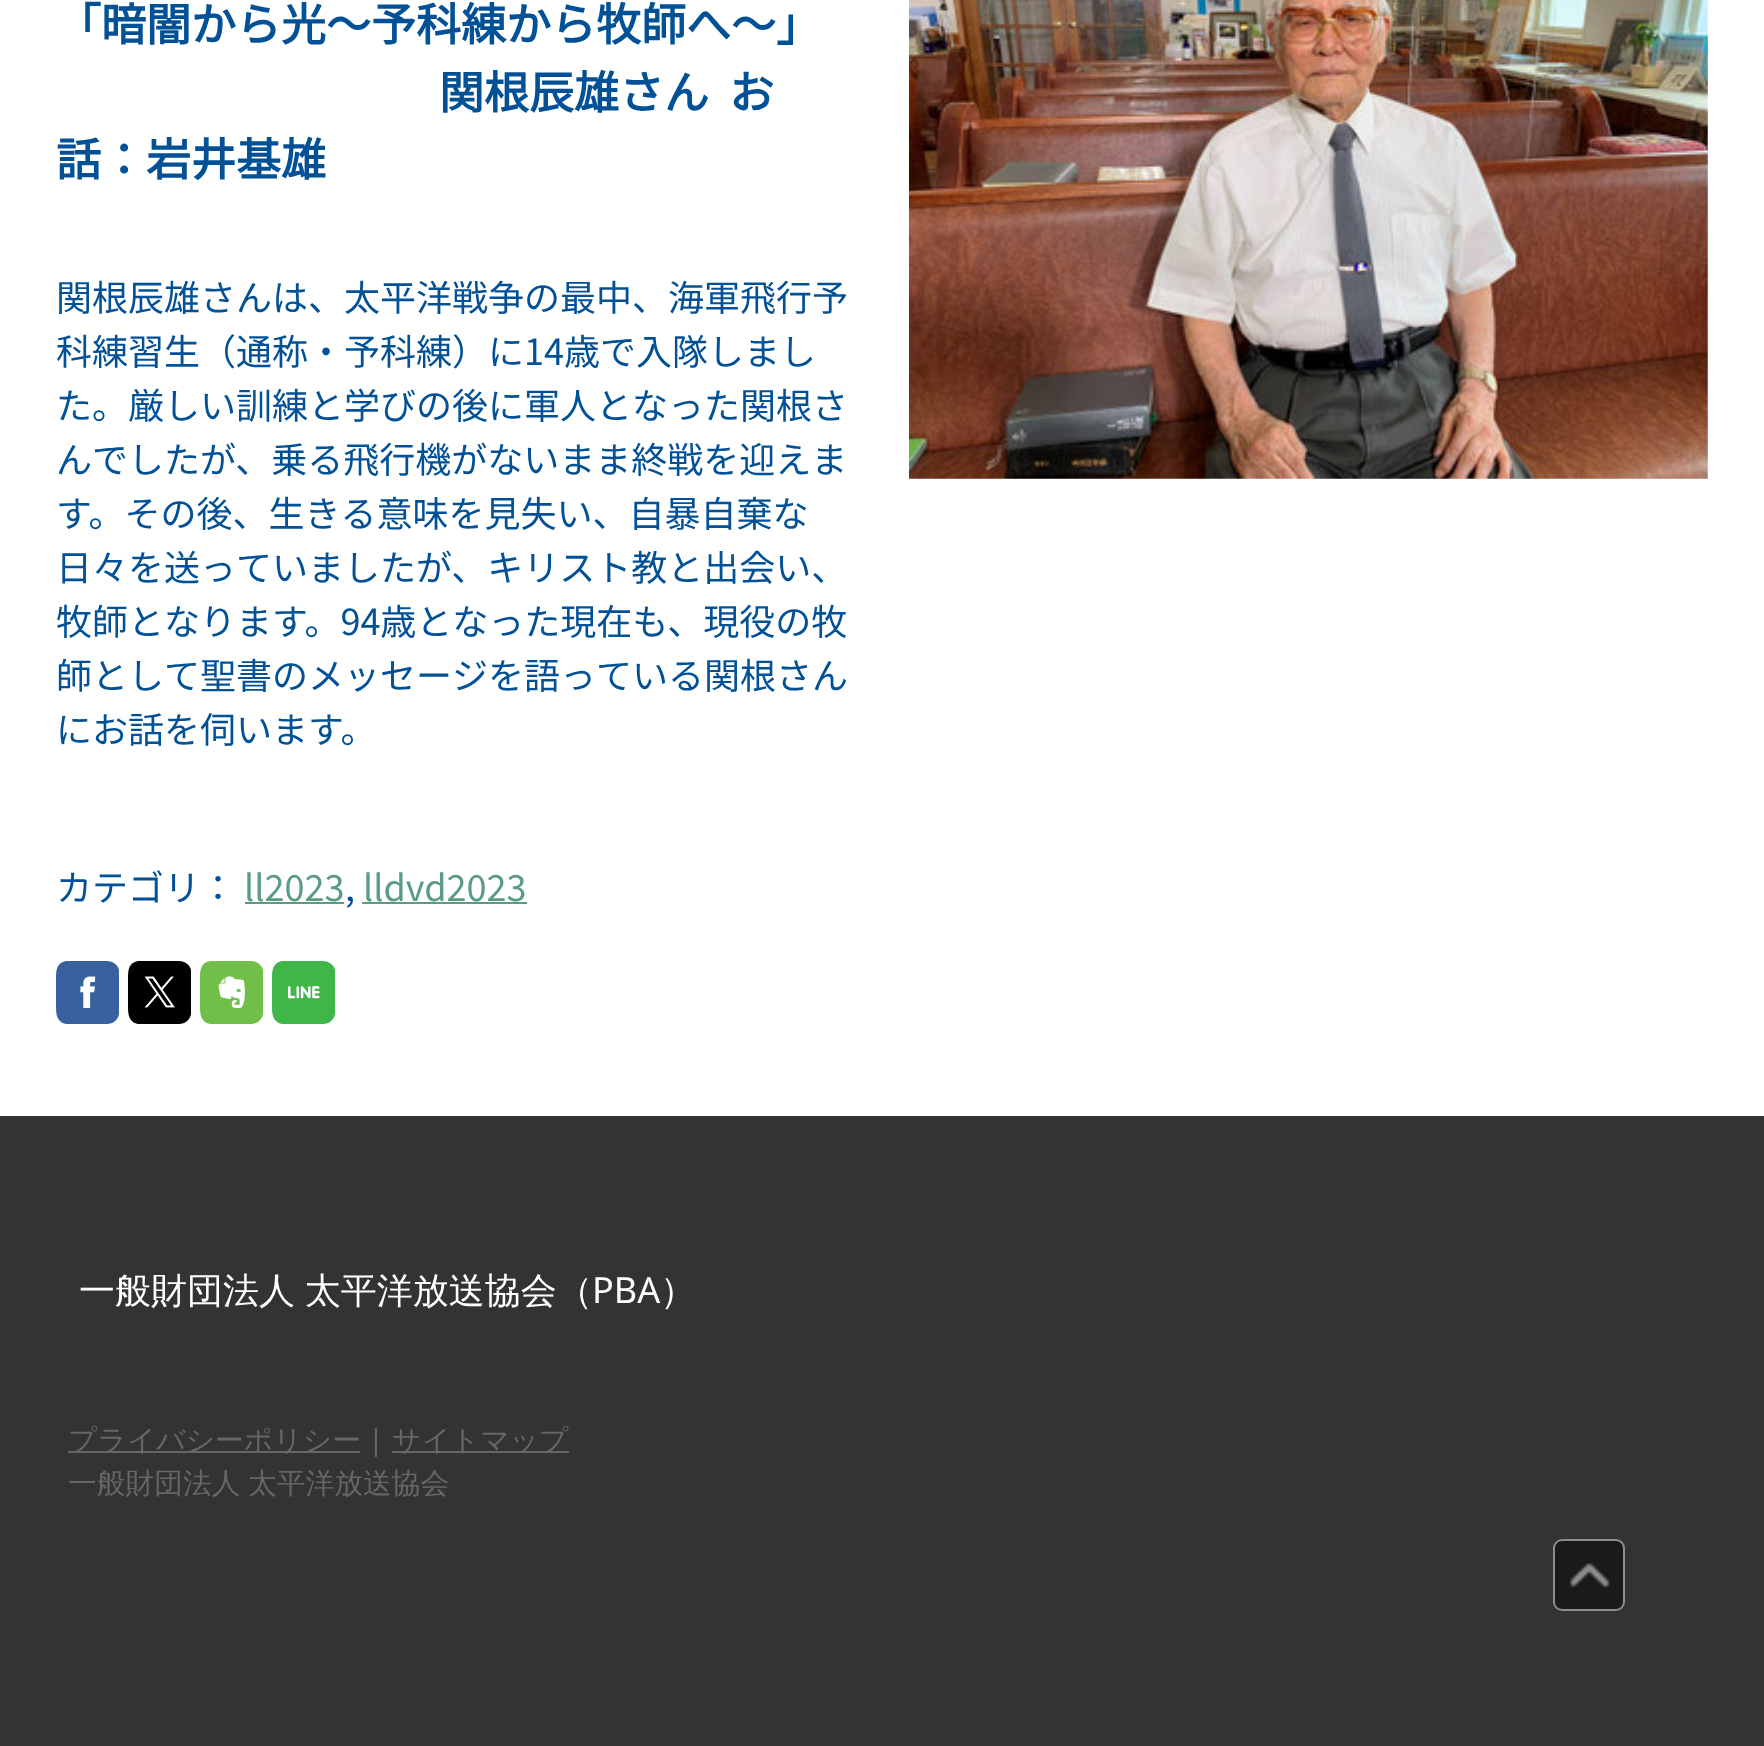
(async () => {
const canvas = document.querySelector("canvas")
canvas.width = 1764
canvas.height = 1746
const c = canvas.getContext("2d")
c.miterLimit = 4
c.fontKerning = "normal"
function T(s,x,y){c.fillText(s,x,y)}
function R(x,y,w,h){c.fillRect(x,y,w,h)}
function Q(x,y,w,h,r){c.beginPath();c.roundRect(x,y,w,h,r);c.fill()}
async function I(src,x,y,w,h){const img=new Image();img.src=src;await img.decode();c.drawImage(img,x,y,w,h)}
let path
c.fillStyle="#fff"
R(0,0,1764,1746)
c.font="bold 45px Noto Sans JP"
c.fillStyle="#025197"
T("「暗闇から光～予科練から牧師へ～」",56,41)
T("関根辰雄さん",439,109)
T("お",729,109)
T("話：岩井基雄",56,176)
c.font="100 36px Noto Sans JP"
T("関根辰雄さんは、太平洋戦争の最中、海軍飛行予",56,311)
T("科練習生（通称・予科練）に14歳で入隊しまし",56,365)
T("た。厳しい訓練と学びの後に軍人となった関根さ",56,419)
T("んでしたが、乗る飛行機がないまま終戦を迎えま",56,473)
T("す。その後、生きる意味を見失い、自暴自棄な",56,527)
T("日々を送っていましたが、キリスト教と出会い、",56,581)
T("牧師となります。94歳となった現在も、現役の牧",56,635)
T("師として聖書のメッセージを語っている関根さん",56,689)
T("にお話を伺います。",56,743)
await I("1.png",909,0,799,479)
T("カテゴリ：",56,901)
c.fillStyle="#599c81"
T("ll2023",244,901)
c.fillStyle="#025197"
T(",",345,901)
c.fillStyle="#599c81"
R(245,902,99,2)
R(362,902,165,2)
T("lldvd2023",363,901)
c.fillStyle="#38619f"
path = new Path2D("M107 1024h-41c-10-2-10-11-10-19v-26c0-8 0-16 10-18h41c6 0 11 4 12 9v44c-1 6-6 10-12 10z")
c.fill(path)
await I("2.png",80,976,16,32)
c.fillStyle="#000"
path = new Path2D("M179 1024h-41c-10-2-10-11-10-19v-26c0-8 0-16 10-18h41c6 0 11 4 12 9v44c-1 6-6 10-12 10z")
c.fill(path)
await I("3.png",144,976,31,32)
c.fillStyle="#6fbf49"
path = new Path2D("M251 1024h-41c-10-2-10-11-10-19v-26c0-8 0-16 10-18h41c6 0 11 4 12 9v44c-1 6-6 10-12 10z")
c.fill(path)
await I("4.png",218,976,27,32)
c.fillStyle="#40b649"
path = new Path2D("M323 1024h-41c-10-2-10-11-10-19v-26c0-8 0-16 10-18h41c6 0 11 4 12 9v44c-1 6-6 10-12 10z")
c.fill(path)
await I("5.png",287,986,33,13)
c.fillStyle="#333"
R(0,1116,1764,630)
c.wordSpacing="-1px"
c.font="500 36px WenQuanYi Zen Hei"
c.fillStyle="#fff"
T("一般財団法人 太平洋放送協会（",79,1303)
c.wordSpacing="0px"
c.font="36px Noto Sans"
T("PBA",592,1303)
c.font="500 36px WenQuanYi Zen Hei"
T("）",660,1303)
c.fillStyle="#666"
R(68,1451,292,2)
c.font="500 28.75px WenQuanYi Zen Hei"
T("プライバシーポリシー",68,1450)
c.font="28.75px Noto Sans"
T("|",368,1450)
R(392,1451,177,2)
c.font="500 28.75px WenQuanYi Zen Hei"
T("サイトマップ",392,1450)
c.wordSpacing="-1px"
T("一般財団法人 太平洋放送協会",68,1493)
c.fillStyle="#1a1a1a"
Q(1553,1539,72,72,9)
c.beginPath()
c.roundRect(1554,1540,70,70,8)
c.strokeStyle="#ffffff80"
c.lineWidth=2
c.stroke()
await I("6.png",1569,1563,41,25)
})()
